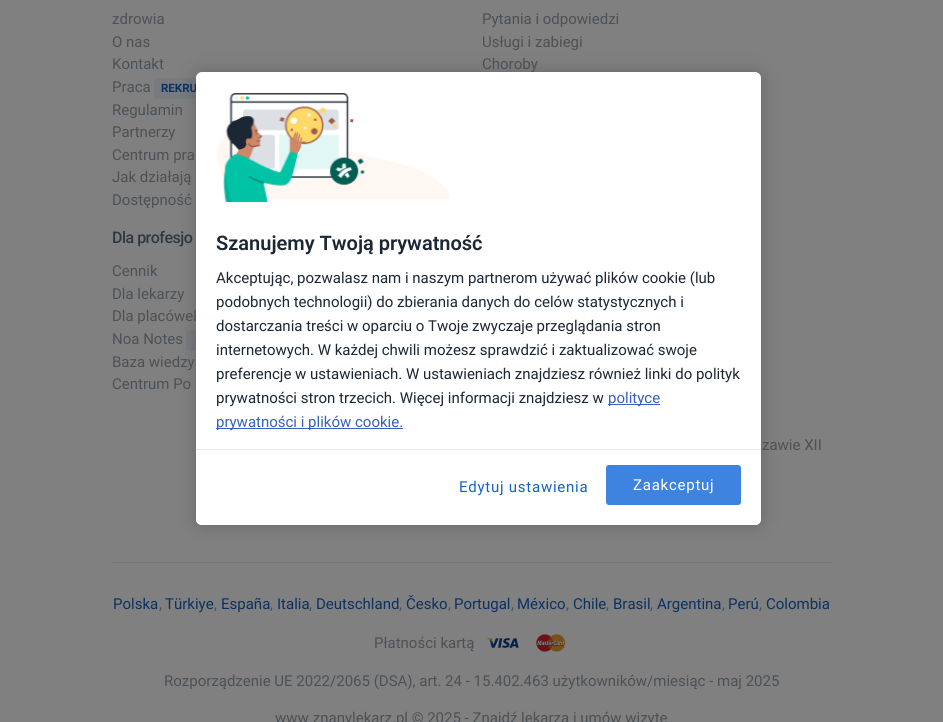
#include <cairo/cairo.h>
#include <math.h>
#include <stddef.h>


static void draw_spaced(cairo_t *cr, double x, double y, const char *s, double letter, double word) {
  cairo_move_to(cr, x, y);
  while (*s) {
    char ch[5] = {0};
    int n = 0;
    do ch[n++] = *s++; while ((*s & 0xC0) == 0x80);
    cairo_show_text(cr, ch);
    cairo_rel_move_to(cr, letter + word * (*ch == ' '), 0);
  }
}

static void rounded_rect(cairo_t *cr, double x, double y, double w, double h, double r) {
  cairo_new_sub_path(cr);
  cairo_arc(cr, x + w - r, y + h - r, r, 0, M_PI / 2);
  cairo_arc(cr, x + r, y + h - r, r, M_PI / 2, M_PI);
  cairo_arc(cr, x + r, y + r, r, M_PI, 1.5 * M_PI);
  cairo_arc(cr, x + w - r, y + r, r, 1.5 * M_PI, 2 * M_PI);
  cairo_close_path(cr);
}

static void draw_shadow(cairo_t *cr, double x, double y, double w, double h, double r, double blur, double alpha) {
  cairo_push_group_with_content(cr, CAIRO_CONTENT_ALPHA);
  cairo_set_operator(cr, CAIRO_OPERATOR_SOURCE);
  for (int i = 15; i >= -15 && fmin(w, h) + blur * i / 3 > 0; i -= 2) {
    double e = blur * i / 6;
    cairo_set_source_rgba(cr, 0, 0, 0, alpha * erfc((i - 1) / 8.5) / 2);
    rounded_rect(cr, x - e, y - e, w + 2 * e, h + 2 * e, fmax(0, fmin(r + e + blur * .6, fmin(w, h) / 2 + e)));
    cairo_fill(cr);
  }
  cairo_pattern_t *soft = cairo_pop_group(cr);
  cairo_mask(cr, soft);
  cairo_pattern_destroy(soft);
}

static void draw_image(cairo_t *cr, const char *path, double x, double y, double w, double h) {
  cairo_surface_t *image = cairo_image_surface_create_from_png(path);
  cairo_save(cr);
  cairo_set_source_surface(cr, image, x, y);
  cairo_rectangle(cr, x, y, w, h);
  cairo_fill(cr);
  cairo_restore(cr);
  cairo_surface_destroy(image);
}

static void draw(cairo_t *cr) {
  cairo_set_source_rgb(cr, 128 / 255.0, 128 / 255.0, 128 / 255.0);
  cairo_paint(cr);
  cairo_set_source_rgb(cr, 119 / 255.0, 122 / 255.0, 127 / 255.0);
  rounded_rect(cr, 154, 78, 97, 21, 3);
  cairo_fill(cr);
  rounded_rect(cr, 186, 330, 62, 21, 3);
  cairo_fill(cr);
  cairo_set_source_rgb(cr, 119 / 255.0, 120 / 255.0, 121 / 255.0);
  cairo_rectangle(cr, 112, 562, 720, 1);
  cairo_fill(cr);
  draw_image(cr, "images/1.png", 487, 638, 32, 10);
  draw_image(cr, "images/2.png", 536, 634, 30, 18);
  cairo_set_source_rgb(cr, 0, 0, 0);
  draw_shadow(cr, 196, 72, 565, 453, 6, 9, 0.2);
  cairo_select_font_face(cr, "Roboto", CAIRO_FONT_SLANT_NORMAL, CAIRO_FONT_WEIGHT_NORMAL);
  cairo_set_font_size(cr, 15);
  cairo_set_source_rgb(cr, 76 / 255.0, 81 / 255.0, 86 / 255.0);
  cairo_move_to(cr, 112, 24);
  cairo_show_text(cr, "zdrowia");
  cairo_move_to(cr, 112, 47);
  cairo_show_text(cr, "O nas");
  cairo_move_to(cr, 112, 69);
  cairo_show_text(cr, "Kontakt");
  cairo_move_to(cr, 112, 92);
  cairo_show_text(cr, "Praca");
  cairo_select_font_face(cr, "Roboto", CAIRO_FONT_SLANT_NORMAL, CAIRO_FONT_WEIGHT_BOLD);
  cairo_set_font_size(cr, 11.5);
  cairo_set_source_rgb(cr, 11 / 255.0, 49 / 255.0, 99 / 255.0);
  cairo_move_to(cr, 161, 92);
  cairo_show_text(cr, "REKRU");
  cairo_select_font_face(cr, "Roboto", CAIRO_FONT_SLANT_NORMAL, CAIRO_FONT_WEIGHT_NORMAL);
  cairo_set_font_size(cr, 15);
  cairo_set_source_rgb(cr, 76 / 255.0, 81 / 255.0, 86 / 255.0);
  cairo_move_to(cr, 112, 115);
  cairo_show_text(cr, "Regulamin");
  cairo_move_to(cr, 112, 137);
  cairo_show_text(cr, "Partnerzy");
  cairo_move_to(cr, 112, 160);
  cairo_show_text(cr, "Centrum pra");
  cairo_move_to(cr, 112, 182);
  cairo_show_text(cr, "Jak działają");
  cairo_move_to(cr, 112, 205);
  cairo_show_text(cr, "Dostępność");
  cairo_move_to(cr, 482, 24);
  cairo_show_text(cr, "Pytania i odpowiedzi");
  cairo_move_to(cr, 482, 47);
  cairo_show_text(cr, "Usługi i zabiegi");
  cairo_move_to(cr, 482, 69);
  cairo_show_text(cr, "Choroby");
  cairo_select_font_face(cr, "Roboto Medium", CAIRO_FONT_SLANT_NORMAL, CAIRO_FONT_WEIGHT_NORMAL);
  cairo_set_font_size(cr, 16);
  cairo_set_source_rgb(cr, 48 / 255.0, 55 / 255.0, 64 / 255.0);
  draw_spaced(cr, 112, 243, "Dla profesjo", -0.5, 0);
  cairo_select_font_face(cr, "Roboto", CAIRO_FONT_SLANT_NORMAL, CAIRO_FONT_WEIGHT_NORMAL);
  cairo_set_font_size(cr, 15);
  cairo_set_source_rgb(cr, 76 / 255.0, 81 / 255.0, 86 / 255.0);
  cairo_move_to(cr, 112, 276);
  cairo_show_text(cr, "Cennik");
  cairo_move_to(cr, 112, 299);
  cairo_show_text(cr, "Dla lekarzy");
  cairo_move_to(cr, 112, 321);
  cairo_show_text(cr, "Dla placówek");
  cairo_move_to(cr, 112, 344);
  cairo_show_text(cr, "Noa Notes");
  cairo_move_to(cr, 112, 367);
  cairo_show_text(cr, "Baza wiedzy");
  cairo_move_to(cr, 112, 389);
  cairo_show_text(cr, "Centrum Po");
  cairo_move_to(cr, 762, 450);
  cairo_show_text(cr, "zawie XII");
  cairo_set_source_rgb(cr, 11 / 255.0, 49 / 255.0, 99 / 255.0);
  cairo_move_to(cr, 113, 609);
  cairo_show_text(cr, "Polska");
  cairo_set_source_rgb(cr, 76 / 255.0, 81 / 255.0, 86 / 255.0);
  cairo_move_to(cr, 159, 609);
  cairo_show_text(cr, ",");
  cairo_set_source_rgb(cr, 11 / 255.0, 49 / 255.0, 99 / 255.0);
  cairo_move_to(cr, 165, 609);
  cairo_show_text(cr, "Türkiye");
  cairo_set_source_rgb(cr, 76 / 255.0, 81 / 255.0, 86 / 255.0);
  cairo_move_to(cr, 214, 609);
  cairo_show_text(cr, ",");
  cairo_set_source_rgb(cr, 11 / 255.0, 49 / 255.0, 99 / 255.0);
  cairo_move_to(cr, 221, 609);
  cairo_show_text(cr, "España");
  cairo_set_source_rgb(cr, 76 / 255.0, 81 / 255.0, 86 / 255.0);
  cairo_move_to(cr, 270, 609);
  cairo_show_text(cr, ",");
  cairo_set_source_rgb(cr, 11 / 255.0, 49 / 255.0, 99 / 255.0);
  cairo_move_to(cr, 277, 609);
  cairo_show_text(cr, "Italia");
  cairo_set_source_rgb(cr, 76 / 255.0, 81 / 255.0, 86 / 255.0);
  cairo_move_to(cr, 309, 609);
  cairo_show_text(cr, ",");
  cairo_set_source_rgb(cr, 11 / 255.0, 49 / 255.0, 99 / 255.0);
  cairo_move_to(cr, 316, 609);
  cairo_show_text(cr, "Deutschland");
  cairo_set_source_rgb(cr, 76 / 255.0, 81 / 255.0, 86 / 255.0);
  cairo_move_to(cr, 399, 609);
  cairo_show_text(cr, ",");
  cairo_set_source_rgb(cr, 11 / 255.0, 49 / 255.0, 99 / 255.0);
  cairo_move_to(cr, 406, 609);
  cairo_show_text(cr, "Česko");
  cairo_set_source_rgb(cr, 76 / 255.0, 81 / 255.0, 86 / 255.0);
  cairo_move_to(cr, 448, 609);
  cairo_show_text(cr, ",");
  cairo_set_source_rgb(cr, 11 / 255.0, 49 / 255.0, 99 / 255.0);
  cairo_move_to(cr, 454, 609);
  cairo_show_text(cr, "Portugal");
  cairo_set_source_rgb(cr, 76 / 255.0, 81 / 255.0, 86 / 255.0);
  cairo_move_to(cr, 511, 609);
  cairo_show_text(cr, ",");
  cairo_set_source_rgb(cr, 11 / 255.0, 49 / 255.0, 99 / 255.0);
  cairo_move_to(cr, 517, 609);
  cairo_show_text(cr, "México");
  cairo_set_source_rgb(cr, 76 / 255.0, 81 / 255.0, 86 / 255.0);
  cairo_move_to(cr, 566, 609);
  cairo_show_text(cr, ",");
  cairo_set_source_rgb(cr, 11 / 255.0, 49 / 255.0, 99 / 255.0);
  cairo_move_to(cr, 573, 609);
  cairo_show_text(cr, "Chile");
  cairo_set_source_rgb(cr, 76 / 255.0, 81 / 255.0, 86 / 255.0);
  cairo_move_to(cr, 606, 609);
  cairo_show_text(cr, ",");
  cairo_set_source_rgb(cr, 11 / 255.0, 49 / 255.0, 99 / 255.0);
  cairo_move_to(cr, 613, 609);
  cairo_show_text(cr, "Brasil");
  cairo_set_source_rgb(cr, 76 / 255.0, 81 / 255.0, 86 / 255.0);
  cairo_move_to(cr, 650, 609);
  cairo_show_text(cr, ",");
  cairo_set_source_rgb(cr, 11 / 255.0, 49 / 255.0, 99 / 255.0);
  cairo_move_to(cr, 657, 609);
  cairo_show_text(cr, "Argentina");
  cairo_set_source_rgb(cr, 76 / 255.0, 81 / 255.0, 86 / 255.0);
  cairo_move_to(cr, 722, 609);
  cairo_show_text(cr, ",");
  cairo_set_source_rgb(cr, 11 / 255.0, 49 / 255.0, 99 / 255.0);
  cairo_move_to(cr, 728, 609);
  cairo_show_text(cr, "Perú");
  cairo_set_source_rgb(cr, 76 / 255.0, 81 / 255.0, 86 / 255.0);
  cairo_move_to(cr, 759, 609);
  cairo_show_text(cr, ",");
  cairo_set_source_rgb(cr, 11 / 255.0, 49 / 255.0, 99 / 255.0);
  cairo_move_to(cr, 766, 609);
  cairo_show_text(cr, "Colombia");
  cairo_set_source_rgb(cr, 76 / 255.0, 81 / 255.0, 86 / 255.0);
  cairo_move_to(cr, 374, 648);
  cairo_show_text(cr, "Płatności kartą");
  cairo_move_to(cr, 164, 686);
  cairo_show_text(cr, "Rozporządzenie UE 2022/2065 (DSA), art. 24 - 15.402.463 użytkowników/miesiąc - maj 2025");
  cairo_move_to(cr, 275, 723);
  cairo_show_text(cr, "www.znanylekarz.pl © 2025 - Znajdź lekarza i umów wizytę");
  cairo_set_source_rgb(cr, 1, 1, 1);
  rounded_rect(cr, 196, 72, 565, 453, 6);
  cairo_fill(cr);
  draw_image(cr, "images/3.png", 217, 93, 233, 109);
  cairo_select_font_face(cr, "Roboto SemiBold", CAIRO_FONT_SLANT_NORMAL, CAIRO_FONT_WEIGHT_NORMAL);
  cairo_set_font_size(cr, 20);
  cairo_set_source_rgb(cr, 27 / 255.0, 39 / 255.0, 52 / 255.0);
  cairo_move_to(cr, 216, 250);
  cairo_show_text(cr, "Szanujemy Twoją prywatność");
  cairo_select_font_face(cr, "Roboto", CAIRO_FONT_SLANT_NORMAL, CAIRO_FONT_WEIGHT_NORMAL);
  cairo_set_font_size(cr, 15);
  cairo_move_to(cr, 216, 283);
  cairo_show_text(cr, "Akceptując, pozwalasz nam i naszym partnerom używać plików cookie (lub");
  cairo_move_to(cr, 216, 307);
  cairo_show_text(cr, "podobnych technologii) do zbierania danych do celów statystycznych i");
  cairo_move_to(cr, 216, 331);
  cairo_show_text(cr, "dostarczania treści w oparciu o Twoje zwyczaje przeglądania stron");
  cairo_move_to(cr, 216, 355);
  cairo_show_text(cr, "internetowych. W każdej chwili możesz sprawdzić i zaktualizować swoje");
  cairo_move_to(cr, 216, 379);
  cairo_show_text(cr, "preferencje w ustawieniach. W ustawieniach znajdziesz również linki do polityk");
  cairo_move_to(cr, 216, 403);
  cairo_show_text(cr, "prywatności stron trzecich. Więcej informacji znajdziesz w");
  cairo_set_source_rgb(cr, 56 / 255.0, 96 / 255.0, 190 / 255.0);
  cairo_rectangle(cr, 608, 404, 52, 1);
  cairo_fill(cr);
  cairo_move_to(cr, 608, 403);
  cairo_show_text(cr, "polityce");
  cairo_rectangle(cr, 216, 428, 187, 1);
  cairo_fill(cr);
  cairo_move_to(cr, 216, 427);
  cairo_show_text(cr, "prywatności i plików cookie.");
  cairo_set_source_rgb(cr, 1, 1, 1);
  cairo_new_path(cr);
  cairo_move_to(cr, 196, 449);
  cairo_line_to(cr, 761, 449);
  cairo_line_to(cr, 761, 519);
  cairo_curve_to(cr, 761, 522.5, 758.5, 525, 755, 525);
  cairo_line_to(cr, 202, 525);
  cairo_curve_to(cr, 198.5, 525, 196, 522.5, 196, 519);
  cairo_close_path(cr);
  cairo_fill(cr);
  cairo_set_source_rgb(cr, 233 / 255.0, 233 / 255.0, 233 / 255.0);
  cairo_rectangle(cr, 196, 449, 565, 1);
  cairo_fill(cr);
  cairo_set_source_rgb(cr, 22 / 255.0, 98 / 255.0, 198 / 255.0);
  draw_spaced(cr, 459, 492, "Edytuj ustawienia", 0.75, 0);
  cairo_set_source_rgb(cr, 61 / 255.0, 131 / 255.0, 223 / 255.0);
  rounded_rect(cr, 606.5, 465.5, 134, 39, 2.5);
  cairo_fill_preserve(cr);
  cairo_set_line_width(cr, 1);
  cairo_stroke(cr);
  cairo_set_source_rgb(cr, 1, 1, 1);
  draw_spaced(cr, 633, 490, "Zaakceptuj", 0.75, 0);
}

int main(void) {
  cairo_surface_t *surface = cairo_image_surface_create(CAIRO_FORMAT_RGB24, 943, 722);
  cairo_t *cr = cairo_create(surface);
  cairo_font_options_t *options = cairo_font_options_create();
  cairo_font_options_set_hint_metrics(options, CAIRO_HINT_METRICS_OFF);
  cairo_font_options_set_hint_style(options, CAIRO_HINT_STYLE_NONE);
  cairo_set_font_options(cr, options);
  cairo_set_miter_limit(cr, 4);
  draw(cr);
  cairo_surface_write_to_png(surface, "out.png");
  cairo_font_options_destroy(options);
  cairo_destroy(cr);
  cairo_surface_destroy(surface);
  return 0;
}
